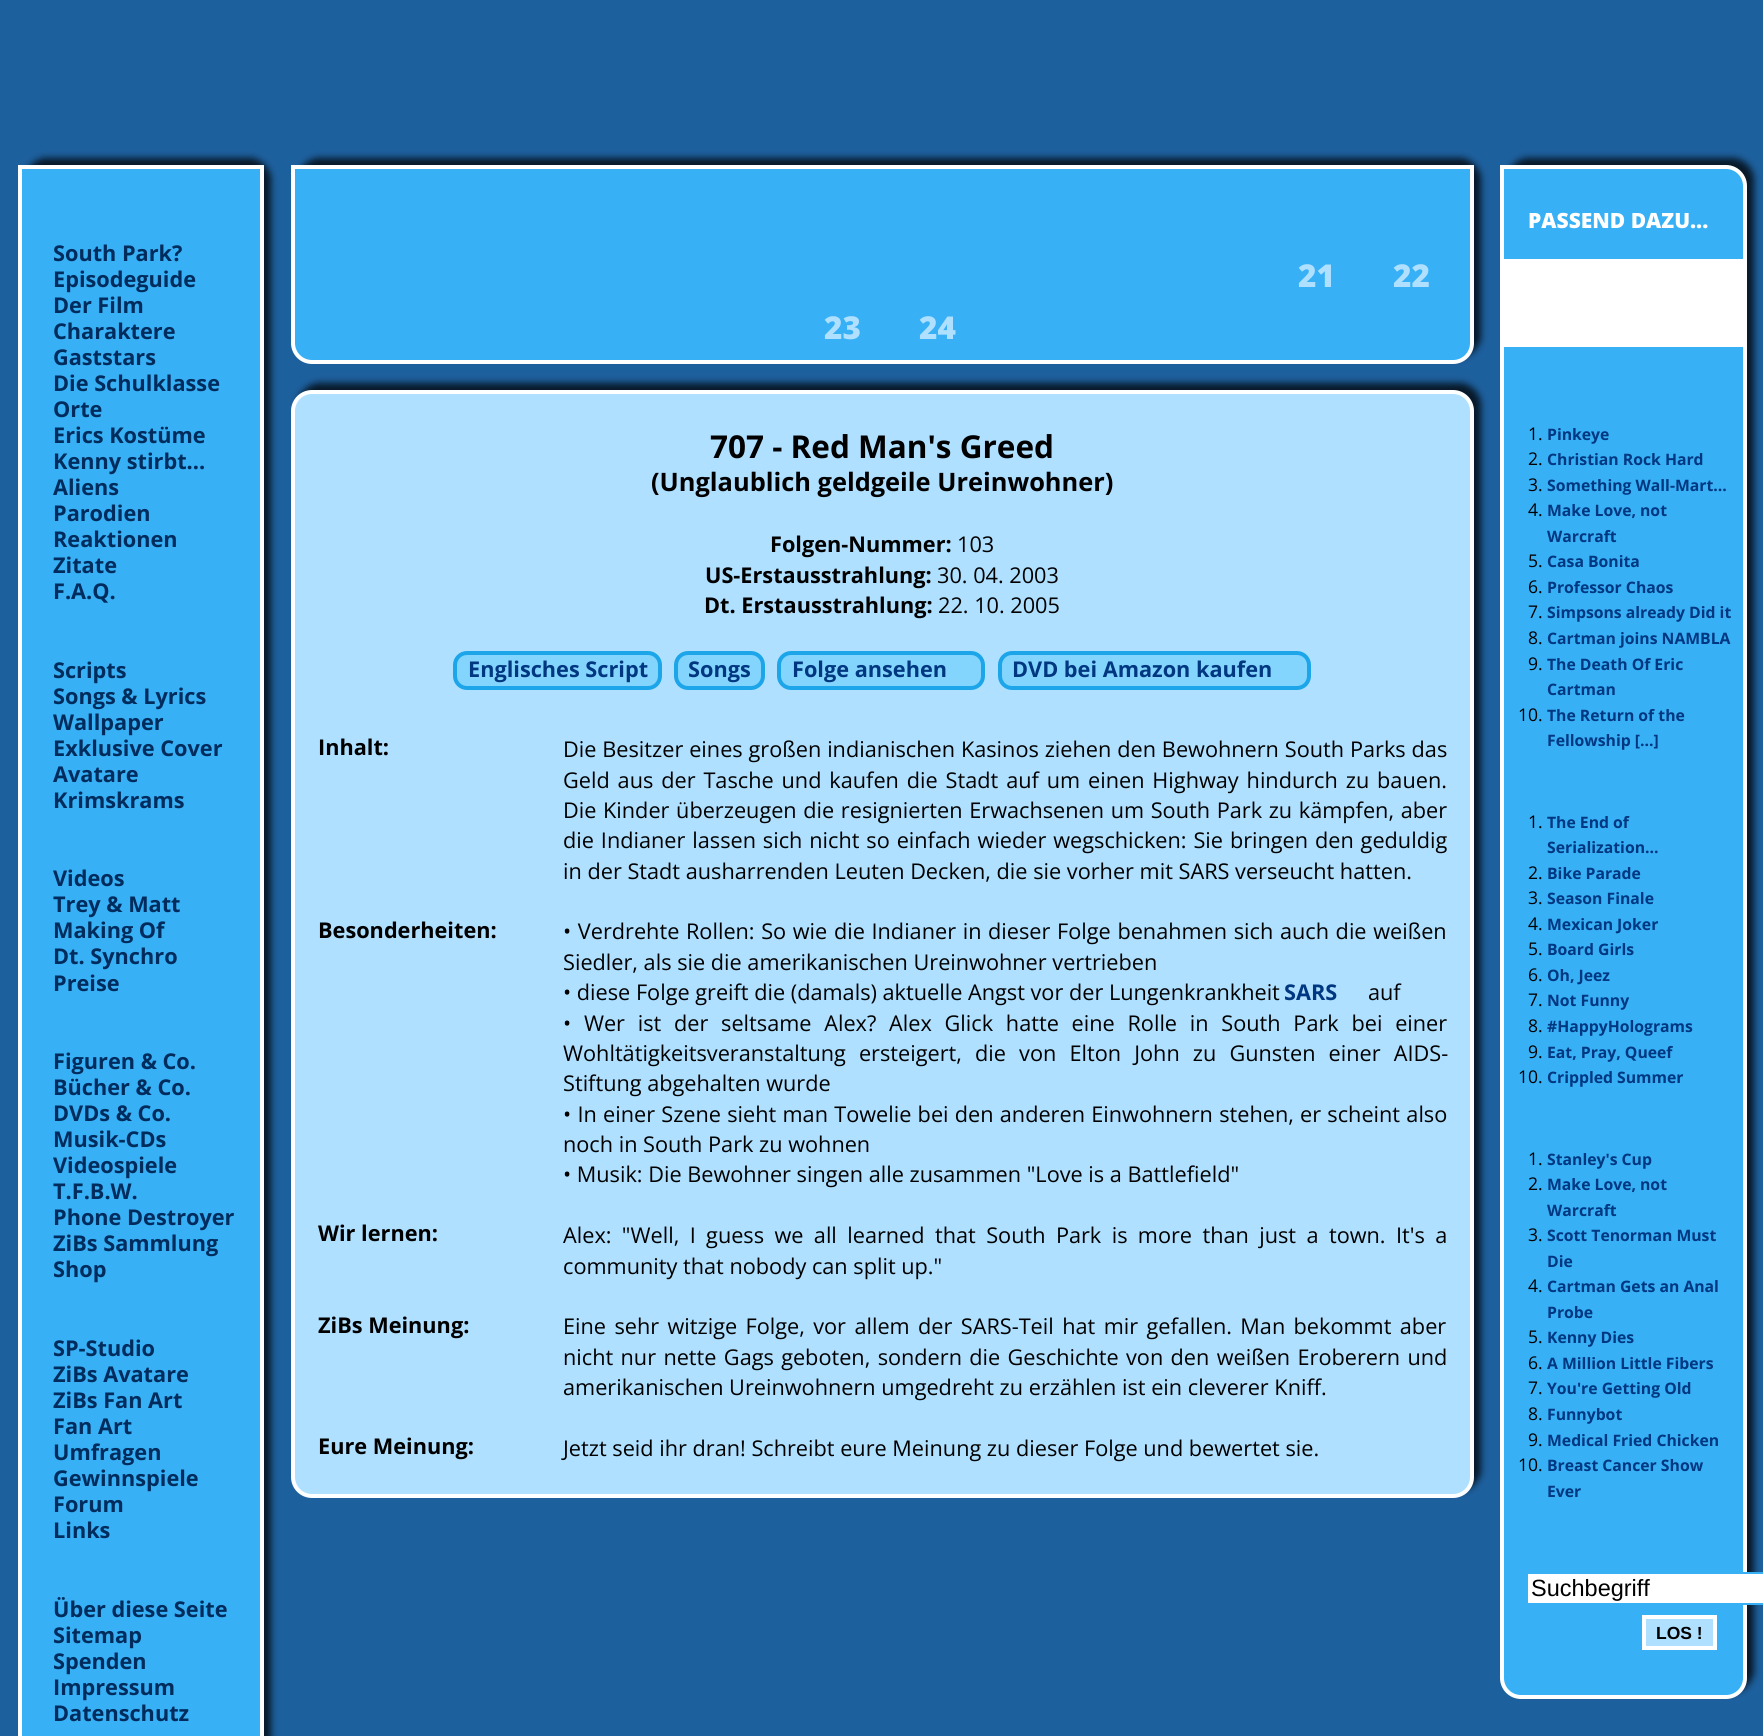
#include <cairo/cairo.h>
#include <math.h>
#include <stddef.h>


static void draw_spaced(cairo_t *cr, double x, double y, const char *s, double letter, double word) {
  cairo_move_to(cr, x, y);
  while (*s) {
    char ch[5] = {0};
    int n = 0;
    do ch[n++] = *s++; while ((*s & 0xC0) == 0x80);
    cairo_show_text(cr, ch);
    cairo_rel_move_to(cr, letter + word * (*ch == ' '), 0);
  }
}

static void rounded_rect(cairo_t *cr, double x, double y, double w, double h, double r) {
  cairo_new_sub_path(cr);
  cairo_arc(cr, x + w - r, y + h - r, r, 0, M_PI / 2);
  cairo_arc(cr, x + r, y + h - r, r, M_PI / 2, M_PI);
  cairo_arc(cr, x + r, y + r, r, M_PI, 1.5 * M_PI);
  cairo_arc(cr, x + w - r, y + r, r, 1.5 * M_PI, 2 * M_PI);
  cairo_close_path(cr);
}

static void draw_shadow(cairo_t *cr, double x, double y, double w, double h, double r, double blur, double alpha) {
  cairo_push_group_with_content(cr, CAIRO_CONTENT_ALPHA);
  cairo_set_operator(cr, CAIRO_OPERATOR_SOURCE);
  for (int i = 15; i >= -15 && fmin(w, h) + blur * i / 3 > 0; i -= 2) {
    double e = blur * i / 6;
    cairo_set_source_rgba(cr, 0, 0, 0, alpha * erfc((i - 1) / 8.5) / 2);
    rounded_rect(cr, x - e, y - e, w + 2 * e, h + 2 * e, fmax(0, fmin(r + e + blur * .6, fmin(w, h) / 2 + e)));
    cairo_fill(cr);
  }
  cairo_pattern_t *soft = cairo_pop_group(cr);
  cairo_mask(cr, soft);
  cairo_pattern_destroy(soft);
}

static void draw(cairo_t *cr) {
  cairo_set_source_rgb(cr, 29 / 255.0, 96 / 255.0, 158 / 255.0);
  cairo_paint(cr);
  cairo_set_source_rgb(cr, 0, 0, 0);
  draw_shadow(cr, 25, 158, 246, 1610, 21, 3.5, 0.75);
  cairo_set_source_rgb(cr, 55 / 255.0, 176 / 255.0, 245 / 255.0);
  cairo_rectangle(cr, 20, 167, 242, 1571);
  cairo_fill_preserve(cr);
  cairo_set_source_rgb(cr, 1, 1, 1);
  cairo_set_line_width(cr, 4);
  cairo_stroke(cr);
  cairo_set_source_rgb(cr, 0, 0, 0);
  draw_shadow(cr, 298, 158, 1183, 199, 21, 3.5, 0.75);
  cairo_set_source_rgb(cr, 55 / 255.0, 176 / 255.0, 245 / 255.0);
  cairo_new_path(cr);
  cairo_move_to(cr, 293, 167);
  cairo_line_to(cr, 1472, 167);
  cairo_line_to(cr, 1472, 343);
  cairo_curve_to(cr, 1472, 353.5, 1463.5, 362, 1453, 362);
  cairo_line_to(cr, 312, 362);
  cairo_curve_to(cr, 301.5, 362, 293, 353.5, 293, 343);
  cairo_close_path(cr);
  cairo_fill_preserve(cr);
  cairo_set_source_rgb(cr, 1, 1, 1);
  cairo_stroke(cr);
  cairo_set_source_rgb(cr, 0, 0, 0);
  draw_shadow(cr, 1507, 158, 247, 1534, 21, 3.5, 0.75);
  cairo_set_source_rgb(cr, 55 / 255.0, 176 / 255.0, 245 / 255.0);
  cairo_new_path(cr);
  cairo_move_to(cr, 1502, 167);
  cairo_line_to(cr, 1726, 167);
  cairo_curve_to(cr, 1736.5, 167, 1745, 175.5, 1745, 186);
  cairo_line_to(cr, 1745, 1678);
  cairo_curve_to(cr, 1745, 1688.5, 1736.5, 1697, 1726, 1697);
  cairo_line_to(cr, 1521, 1697);
  cairo_curve_to(cr, 1510.5, 1697, 1502, 1688.5, 1502, 1678);
  cairo_close_path(cr);
  cairo_fill_preserve(cr);
  cairo_set_source_rgb(cr, 1, 1, 1);
  cairo_stroke(cr);
  cairo_rectangle(cr, 1504, 259, 239, 88);
  cairo_fill(cr);
  cairo_rectangle(cr, 1527, 1573, 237, 31);
  cairo_fill_preserve(cr);
  cairo_set_source_rgb(cr, 55 / 255.0, 176 / 255.0, 245 / 255.0);
  cairo_set_line_width(cr, 2);
  cairo_stroke(cr);
  cairo_set_source_rgb(cr, 175 / 255.0, 224 / 255.0, 1);
  cairo_rectangle(cr, 1644, 1617, 71, 31);
  cairo_fill_preserve(cr);
  cairo_set_source_rgb(cr, 1, 1, 1);
  cairo_set_line_width(cr, 4);
  cairo_stroke(cr);
  cairo_set_source_rgb(cr, 0, 0, 0);
  draw_shadow(cr, 298, 383, 1183, 1108, 21, 3.5, 0.75);
  cairo_set_source_rgb(cr, 175 / 255.0, 224 / 255.0, 1);
  rounded_rect(cr, 293, 392, 1179, 1104, 19);
  cairo_fill_preserve(cr);
  cairo_set_source_rgb(cr, 1, 1, 1);
  cairo_stroke(cr);
  cairo_set_source_rgb(cr, 131 / 255.0, 213 / 255.0, 253 / 255.0);
  rounded_rect(cr, 455, 653, 205, 35, 12);
  cairo_fill_preserve(cr);
  cairo_set_source_rgb(cr, 28 / 255.0, 165 / 255.0, 233 / 255.0);
  cairo_stroke(cr);
  cairo_set_source_rgb(cr, 131 / 255.0, 213 / 255.0, 253 / 255.0);
  rounded_rect(cr, 676, 653, 87, 35, 12);
  cairo_fill_preserve(cr);
  cairo_set_source_rgb(cr, 28 / 255.0, 165 / 255.0, 233 / 255.0);
  cairo_stroke(cr);
  cairo_set_source_rgb(cr, 131 / 255.0, 213 / 255.0, 253 / 255.0);
  rounded_rect(cr, 779, 653, 204, 35, 12);
  cairo_fill_preserve(cr);
  cairo_set_source_rgb(cr, 28 / 255.0, 165 / 255.0, 233 / 255.0);
  cairo_stroke(cr);
  cairo_set_source_rgb(cr, 131 / 255.0, 213 / 255.0, 253 / 255.0);
  rounded_rect(cr, 1000, 653, 309, 35, 12);
  cairo_fill_preserve(cr);
  cairo_set_source_rgb(cr, 28 / 255.0, 165 / 255.0, 233 / 255.0);
  cairo_stroke(cr);
  cairo_select_font_face(cr, "Open Sans", CAIRO_FONT_SLANT_NORMAL, CAIRO_FONT_WEIGHT_BOLD);
  cairo_set_font_size(cr, 21.7);
  cairo_set_source_rgb(cr, 0, 44 / 255.0, 93 / 255.0);
  cairo_move_to(cr, 53, 261);
  cairo_show_text(cr, "South Park?");
  cairo_move_to(cr, 53, 287);
  cairo_show_text(cr, "Episodeguide");
  cairo_move_to(cr, 53, 313);
  cairo_show_text(cr, "Der Film");
  cairo_move_to(cr, 53, 339);
  cairo_show_text(cr, "Charaktere");
  cairo_move_to(cr, 53, 365);
  cairo_show_text(cr, "Gaststars");
  cairo_move_to(cr, 53, 391);
  cairo_show_text(cr, "Die Schulklasse");
  cairo_move_to(cr, 53, 417);
  cairo_show_text(cr, "Orte");
  cairo_move_to(cr, 53, 443);
  cairo_show_text(cr, "Erics Kostüme");
  cairo_move_to(cr, 53, 469);
  cairo_show_text(cr, "Kenny stirbt...");
  cairo_move_to(cr, 53, 495);
  cairo_show_text(cr, "Aliens");
  cairo_move_to(cr, 53, 521);
  cairo_show_text(cr, "Parodien");
  cairo_move_to(cr, 53, 547);
  cairo_show_text(cr, "Reaktionen");
  cairo_move_to(cr, 53, 573);
  cairo_show_text(cr, "Zitate");
  cairo_move_to(cr, 53, 599);
  cairo_show_text(cr, "F.A.Q.");
  cairo_move_to(cr, 53, 678);
  cairo_show_text(cr, "Scripts");
  cairo_move_to(cr, 53, 704);
  cairo_show_text(cr, "Songs & Lyrics");
  cairo_move_to(cr, 53, 730);
  cairo_show_text(cr, "Wallpaper");
  cairo_move_to(cr, 53, 756);
  cairo_show_text(cr, "Exklusive Cover");
  cairo_move_to(cr, 53, 782);
  cairo_show_text(cr, "Avatare");
  cairo_move_to(cr, 53, 808);
  cairo_show_text(cr, "Krimskrams");
  cairo_move_to(cr, 53, 886);
  cairo_show_text(cr, "Videos");
  cairo_move_to(cr, 53, 912);
  cairo_show_text(cr, "Trey & Matt");
  cairo_move_to(cr, 53, 938);
  cairo_show_text(cr, "Making Of");
  cairo_move_to(cr, 53, 964);
  cairo_show_text(cr, "Dt. Synchro");
  cairo_move_to(cr, 53, 991);
  cairo_show_text(cr, "Preise");
  cairo_move_to(cr, 53, 1069);
  cairo_show_text(cr, "Figuren & Co.");
  cairo_move_to(cr, 53, 1095);
  cairo_show_text(cr, "Bücher & Co.");
  cairo_move_to(cr, 53, 1121);
  cairo_show_text(cr, "DVDs & Co.");
  cairo_move_to(cr, 53, 1147);
  cairo_show_text(cr, "Musik-CDs");
  cairo_move_to(cr, 53, 1173);
  cairo_show_text(cr, "Videospiele");
  cairo_move_to(cr, 53, 1199);
  cairo_show_text(cr, "T.F.B.W.");
  cairo_move_to(cr, 53, 1225);
  cairo_show_text(cr, "Phone Destroyer");
  cairo_move_to(cr, 53, 1251);
  cairo_show_text(cr, "ZiBs Sammlung");
  cairo_move_to(cr, 53, 1277);
  cairo_show_text(cr, "Shop");
  cairo_move_to(cr, 53, 1356);
  cairo_show_text(cr, "SP-Studio");
  cairo_move_to(cr, 53, 1382);
  cairo_show_text(cr, "ZiBs Avatare");
  cairo_move_to(cr, 53, 1408);
  cairo_show_text(cr, "ZiBs Fan Art");
  cairo_move_to(cr, 53, 1434);
  cairo_show_text(cr, "Fan Art");
  cairo_move_to(cr, 53, 1460);
  cairo_show_text(cr, "Umfragen");
  cairo_move_to(cr, 53, 1486);
  cairo_show_text(cr, "Gewinnspiele");
  cairo_move_to(cr, 53, 1512);
  cairo_show_text(cr, "Forum");
  cairo_move_to(cr, 53, 1538);
  cairo_show_text(cr, "Links");
  cairo_move_to(cr, 53, 1617);
  cairo_show_text(cr, "Über diese Seite");
  cairo_move_to(cr, 53, 1643);
  cairo_show_text(cr, "Sitemap");
  cairo_move_to(cr, 53, 1669);
  cairo_show_text(cr, "Spenden");
  cairo_move_to(cr, 53, 1695);
  cairo_show_text(cr, "Impressum");
  cairo_move_to(cr, 53, 1721);
  cairo_show_text(cr, "Datenschutz");
  cairo_select_font_face(cr, "Open Sans ExtraBold", CAIRO_FONT_SLANT_NORMAL, CAIRO_FONT_WEIGHT_NORMAL);
  cairo_set_font_size(cr, 31.5);
  cairo_set_source_rgb(cr, 175 / 255.0, 224 / 255.0, 1);
  cairo_move_to(cr, 1298, 287);
  cairo_show_text(cr, "21");
  cairo_move_to(cr, 1393, 287);
  cairo_show_text(cr, "22");
  cairo_move_to(cr, 824, 339);
  cairo_show_text(cr, "23");
  cairo_move_to(cr, 919, 339);
  cairo_show_text(cr, "24");
  cairo_set_font_size(cr, 21);
  cairo_set_source_rgb(cr, 1, 1, 1);
  cairo_move_to(cr, 1528, 228);
  cairo_show_text(cr, "PASSEND DAZU...");
  cairo_select_font_face(cr, "Open Sans", CAIRO_FONT_SLANT_NORMAL, CAIRO_FONT_WEIGHT_NORMAL);
  cairo_set_font_size(cr, 17.5);
  cairo_set_source_rgb(cr, 0, 0, 0);
  cairo_move_to(cr, 1528, 440);
  cairo_show_text(cr, "1.");
  cairo_select_font_face(cr, "Open Sans", CAIRO_FONT_SLANT_NORMAL, CAIRO_FONT_WEIGHT_BOLD);
  cairo_set_font_size(cr, 15.75);
  cairo_set_source_rgb(cr, 0, 55 / 255.0, 129 / 255.0);
  cairo_move_to(cr, 1547, 440);
  cairo_show_text(cr, "Pinkeye");
  cairo_select_font_face(cr, "Open Sans", CAIRO_FONT_SLANT_NORMAL, CAIRO_FONT_WEIGHT_NORMAL);
  cairo_set_font_size(cr, 17.5);
  cairo_set_source_rgb(cr, 0, 0, 0);
  cairo_move_to(cr, 1528, 465);
  cairo_show_text(cr, "2.");
  cairo_select_font_face(cr, "Open Sans", CAIRO_FONT_SLANT_NORMAL, CAIRO_FONT_WEIGHT_BOLD);
  cairo_set_font_size(cr, 15.75);
  cairo_set_source_rgb(cr, 0, 55 / 255.0, 129 / 255.0);
  cairo_move_to(cr, 1547, 465);
  cairo_show_text(cr, "Christian Rock Hard");
  cairo_select_font_face(cr, "Open Sans", CAIRO_FONT_SLANT_NORMAL, CAIRO_FONT_WEIGHT_NORMAL);
  cairo_set_font_size(cr, 17.5);
  cairo_set_source_rgb(cr, 0, 0, 0);
  cairo_move_to(cr, 1528, 491);
  cairo_show_text(cr, "3.");
  cairo_select_font_face(cr, "Open Sans", CAIRO_FONT_SLANT_NORMAL, CAIRO_FONT_WEIGHT_BOLD);
  cairo_set_font_size(cr, 15.75);
  cairo_set_source_rgb(cr, 0, 55 / 255.0, 129 / 255.0);
  cairo_move_to(cr, 1547, 491);
  cairo_show_text(cr, "Something Wall-Mart...");
  cairo_select_font_face(cr, "Open Sans", CAIRO_FONT_SLANT_NORMAL, CAIRO_FONT_WEIGHT_NORMAL);
  cairo_set_font_size(cr, 17.5);
  cairo_set_source_rgb(cr, 0, 0, 0);
  cairo_move_to(cr, 1528, 516);
  cairo_show_text(cr, "4.");
  cairo_select_font_face(cr, "Open Sans", CAIRO_FONT_SLANT_NORMAL, CAIRO_FONT_WEIGHT_BOLD);
  cairo_set_font_size(cr, 15.75);
  cairo_set_source_rgb(cr, 0, 55 / 255.0, 129 / 255.0);
  cairo_move_to(cr, 1547, 516);
  cairo_show_text(cr, "Make Love, not");
  cairo_move_to(cr, 1547, 542);
  cairo_show_text(cr, "Warcraft");
  cairo_select_font_face(cr, "Open Sans", CAIRO_FONT_SLANT_NORMAL, CAIRO_FONT_WEIGHT_NORMAL);
  cairo_set_font_size(cr, 17.5);
  cairo_set_source_rgb(cr, 0, 0, 0);
  cairo_move_to(cr, 1528, 567);
  cairo_show_text(cr, "5.");
  cairo_select_font_face(cr, "Open Sans", CAIRO_FONT_SLANT_NORMAL, CAIRO_FONT_WEIGHT_BOLD);
  cairo_set_font_size(cr, 15.75);
  cairo_set_source_rgb(cr, 0, 55 / 255.0, 129 / 255.0);
  cairo_move_to(cr, 1547, 567);
  cairo_show_text(cr, "Casa Bonita");
  cairo_select_font_face(cr, "Open Sans", CAIRO_FONT_SLANT_NORMAL, CAIRO_FONT_WEIGHT_NORMAL);
  cairo_set_font_size(cr, 17.5);
  cairo_set_source_rgb(cr, 0, 0, 0);
  cairo_move_to(cr, 1528, 593);
  cairo_show_text(cr, "6.");
  cairo_select_font_face(cr, "Open Sans", CAIRO_FONT_SLANT_NORMAL, CAIRO_FONT_WEIGHT_BOLD);
  cairo_set_font_size(cr, 15.75);
  cairo_set_source_rgb(cr, 0, 55 / 255.0, 129 / 255.0);
  cairo_move_to(cr, 1547, 593);
  cairo_show_text(cr, "Professor Chaos");
  cairo_select_font_face(cr, "Open Sans", CAIRO_FONT_SLANT_NORMAL, CAIRO_FONT_WEIGHT_NORMAL);
  cairo_set_font_size(cr, 17.5);
  cairo_set_source_rgb(cr, 0, 0, 0);
  cairo_move_to(cr, 1528, 618);
  cairo_show_text(cr, "7.");
  cairo_select_font_face(cr, "Open Sans", CAIRO_FONT_SLANT_NORMAL, CAIRO_FONT_WEIGHT_BOLD);
  cairo_set_font_size(cr, 15.75);
  cairo_set_source_rgb(cr, 0, 55 / 255.0, 129 / 255.0);
  cairo_move_to(cr, 1547, 618);
  cairo_show_text(cr, "Simpsons already Did it");
  cairo_select_font_face(cr, "Open Sans", CAIRO_FONT_SLANT_NORMAL, CAIRO_FONT_WEIGHT_NORMAL);
  cairo_set_font_size(cr, 17.5);
  cairo_set_source_rgb(cr, 0, 0, 0);
  cairo_move_to(cr, 1528, 644);
  cairo_show_text(cr, "8.");
  cairo_select_font_face(cr, "Open Sans", CAIRO_FONT_SLANT_NORMAL, CAIRO_FONT_WEIGHT_BOLD);
  cairo_set_font_size(cr, 15.75);
  cairo_set_source_rgb(cr, 0, 55 / 255.0, 129 / 255.0);
  cairo_move_to(cr, 1547, 644);
  cairo_show_text(cr, "Cartman joins NAMBLA");
  cairo_select_font_face(cr, "Open Sans", CAIRO_FONT_SLANT_NORMAL, CAIRO_FONT_WEIGHT_NORMAL);
  cairo_set_font_size(cr, 17.5);
  cairo_set_source_rgb(cr, 0, 0, 0);
  cairo_move_to(cr, 1528, 670);
  cairo_show_text(cr, "9.");
  cairo_select_font_face(cr, "Open Sans", CAIRO_FONT_SLANT_NORMAL, CAIRO_FONT_WEIGHT_BOLD);
  cairo_set_font_size(cr, 15.75);
  cairo_set_source_rgb(cr, 0, 55 / 255.0, 129 / 255.0);
  cairo_move_to(cr, 1547, 670);
  cairo_show_text(cr, "The Death Of Eric");
  cairo_move_to(cr, 1547, 695);
  cairo_show_text(cr, "Cartman");
  cairo_select_font_face(cr, "Open Sans", CAIRO_FONT_SLANT_NORMAL, CAIRO_FONT_WEIGHT_NORMAL);
  cairo_set_font_size(cr, 17.5);
  cairo_set_source_rgb(cr, 0, 0, 0);
  cairo_move_to(cr, 1518, 721);
  cairo_show_text(cr, "10.");
  cairo_select_font_face(cr, "Open Sans", CAIRO_FONT_SLANT_NORMAL, CAIRO_FONT_WEIGHT_BOLD);
  cairo_set_font_size(cr, 15.75);
  cairo_set_source_rgb(cr, 0, 55 / 255.0, 129 / 255.0);
  cairo_move_to(cr, 1547, 721);
  cairo_show_text(cr, "The Return of the");
  cairo_move_to(cr, 1547, 746);
  cairo_show_text(cr, "Fellowship [...]");
  cairo_select_font_face(cr, "Open Sans", CAIRO_FONT_SLANT_NORMAL, CAIRO_FONT_WEIGHT_NORMAL);
  cairo_set_font_size(cr, 17.5);
  cairo_set_source_rgb(cr, 0, 0, 0);
  cairo_move_to(cr, 1528, 828);
  cairo_show_text(cr, "1.");
  cairo_select_font_face(cr, "Open Sans", CAIRO_FONT_SLANT_NORMAL, CAIRO_FONT_WEIGHT_BOLD);
  cairo_set_font_size(cr, 15.75);
  cairo_set_source_rgb(cr, 0, 55 / 255.0, 129 / 255.0);
  cairo_move_to(cr, 1547, 828);
  cairo_show_text(cr, "The End of");
  cairo_move_to(cr, 1547, 853);
  cairo_show_text(cr, "Serialization...");
  cairo_select_font_face(cr, "Open Sans", CAIRO_FONT_SLANT_NORMAL, CAIRO_FONT_WEIGHT_NORMAL);
  cairo_set_font_size(cr, 17.5);
  cairo_set_source_rgb(cr, 0, 0, 0);
  cairo_move_to(cr, 1528, 879);
  cairo_show_text(cr, "2.");
  cairo_select_font_face(cr, "Open Sans", CAIRO_FONT_SLANT_NORMAL, CAIRO_FONT_WEIGHT_BOLD);
  cairo_set_font_size(cr, 15.75);
  cairo_set_source_rgb(cr, 0, 55 / 255.0, 129 / 255.0);
  cairo_move_to(cr, 1547, 879);
  cairo_show_text(cr, "Bike Parade");
  cairo_select_font_face(cr, "Open Sans", CAIRO_FONT_SLANT_NORMAL, CAIRO_FONT_WEIGHT_NORMAL);
  cairo_set_font_size(cr, 17.5);
  cairo_set_source_rgb(cr, 0, 0, 0);
  cairo_move_to(cr, 1528, 904);
  cairo_show_text(cr, "3.");
  cairo_select_font_face(cr, "Open Sans", CAIRO_FONT_SLANT_NORMAL, CAIRO_FONT_WEIGHT_BOLD);
  cairo_set_font_size(cr, 15.75);
  cairo_set_source_rgb(cr, 0, 55 / 255.0, 129 / 255.0);
  cairo_move_to(cr, 1547, 904);
  cairo_show_text(cr, "Season Finale");
  cairo_select_font_face(cr, "Open Sans", CAIRO_FONT_SLANT_NORMAL, CAIRO_FONT_WEIGHT_NORMAL);
  cairo_set_font_size(cr, 17.5);
  cairo_set_source_rgb(cr, 0, 0, 0);
  cairo_move_to(cr, 1528, 930);
  cairo_show_text(cr, "4.");
  cairo_select_font_face(cr, "Open Sans", CAIRO_FONT_SLANT_NORMAL, CAIRO_FONT_WEIGHT_BOLD);
  cairo_set_font_size(cr, 15.75);
  cairo_set_source_rgb(cr, 0, 55 / 255.0, 129 / 255.0);
  cairo_move_to(cr, 1547, 930);
  cairo_show_text(cr, "Mexican Joker");
  cairo_select_font_face(cr, "Open Sans", CAIRO_FONT_SLANT_NORMAL, CAIRO_FONT_WEIGHT_NORMAL);
  cairo_set_font_size(cr, 17.5);
  cairo_set_source_rgb(cr, 0, 0, 0);
  cairo_move_to(cr, 1528, 955);
  cairo_show_text(cr, "5.");
  cairo_select_font_face(cr, "Open Sans", CAIRO_FONT_SLANT_NORMAL, CAIRO_FONT_WEIGHT_BOLD);
  cairo_set_font_size(cr, 15.75);
  cairo_set_source_rgb(cr, 0, 55 / 255.0, 129 / 255.0);
  cairo_move_to(cr, 1547, 955);
  cairo_show_text(cr, "Board Girls");
  cairo_select_font_face(cr, "Open Sans", CAIRO_FONT_SLANT_NORMAL, CAIRO_FONT_WEIGHT_NORMAL);
  cairo_set_font_size(cr, 17.5);
  cairo_set_source_rgb(cr, 0, 0, 0);
  cairo_move_to(cr, 1528, 981);
  cairo_show_text(cr, "6.");
  cairo_select_font_face(cr, "Open Sans", CAIRO_FONT_SLANT_NORMAL, CAIRO_FONT_WEIGHT_BOLD);
  cairo_set_font_size(cr, 15.75);
  cairo_set_source_rgb(cr, 0, 55 / 255.0, 129 / 255.0);
  cairo_move_to(cr, 1547, 981);
  cairo_show_text(cr, "Oh, Jeez");
  cairo_select_font_face(cr, "Open Sans", CAIRO_FONT_SLANT_NORMAL, CAIRO_FONT_WEIGHT_NORMAL);
  cairo_set_font_size(cr, 17.5);
  cairo_set_source_rgb(cr, 0, 0, 0);
  cairo_move_to(cr, 1528, 1006);
  cairo_show_text(cr, "7.");
  cairo_select_font_face(cr, "Open Sans", CAIRO_FONT_SLANT_NORMAL, CAIRO_FONT_WEIGHT_BOLD);
  cairo_set_font_size(cr, 15.75);
  cairo_set_source_rgb(cr, 0, 55 / 255.0, 129 / 255.0);
  cairo_move_to(cr, 1547, 1006);
  cairo_show_text(cr, "Not Funny");
  cairo_select_font_face(cr, "Open Sans", CAIRO_FONT_SLANT_NORMAL, CAIRO_FONT_WEIGHT_NORMAL);
  cairo_set_font_size(cr, 17.5);
  cairo_set_source_rgb(cr, 0, 0, 0);
  cairo_move_to(cr, 1528, 1032);
  cairo_show_text(cr, "8.");
  cairo_select_font_face(cr, "Open Sans", CAIRO_FONT_SLANT_NORMAL, CAIRO_FONT_WEIGHT_BOLD);
  cairo_set_font_size(cr, 15.75);
  cairo_set_source_rgb(cr, 0, 55 / 255.0, 129 / 255.0);
  cairo_move_to(cr, 1547, 1032);
  cairo_show_text(cr, "#HappyHolograms");
  cairo_select_font_face(cr, "Open Sans", CAIRO_FONT_SLANT_NORMAL, CAIRO_FONT_WEIGHT_NORMAL);
  cairo_set_font_size(cr, 17.5);
  cairo_set_source_rgb(cr, 0, 0, 0);
  cairo_move_to(cr, 1528, 1058);
  cairo_show_text(cr, "9.");
  cairo_select_font_face(cr, "Open Sans", CAIRO_FONT_SLANT_NORMAL, CAIRO_FONT_WEIGHT_BOLD);
  cairo_set_font_size(cr, 15.75);
  cairo_set_source_rgb(cr, 0, 55 / 255.0, 129 / 255.0);
  cairo_move_to(cr, 1547, 1058);
  cairo_show_text(cr, "Eat, Pray, Queef");
  cairo_select_font_face(cr, "Open Sans", CAIRO_FONT_SLANT_NORMAL, CAIRO_FONT_WEIGHT_NORMAL);
  cairo_set_font_size(cr, 17.5);
  cairo_set_source_rgb(cr, 0, 0, 0);
  cairo_move_to(cr, 1518, 1083);
  cairo_show_text(cr, "10.");
  cairo_select_font_face(cr, "Open Sans", CAIRO_FONT_SLANT_NORMAL, CAIRO_FONT_WEIGHT_BOLD);
  cairo_set_font_size(cr, 15.75);
  cairo_set_source_rgb(cr, 0, 55 / 255.0, 129 / 255.0);
  cairo_move_to(cr, 1547, 1083);
  cairo_show_text(cr, "Crippled Summer");
  cairo_select_font_face(cr, "Open Sans", CAIRO_FONT_SLANT_NORMAL, CAIRO_FONT_WEIGHT_NORMAL);
  cairo_set_font_size(cr, 17.5);
  cairo_set_source_rgb(cr, 0, 0, 0);
  cairo_move_to(cr, 1528, 1165);
  cairo_show_text(cr, "1.");
  cairo_select_font_face(cr, "Open Sans", CAIRO_FONT_SLANT_NORMAL, CAIRO_FONT_WEIGHT_BOLD);
  cairo_set_font_size(cr, 15.75);
  cairo_set_source_rgb(cr, 0, 55 / 255.0, 129 / 255.0);
  cairo_move_to(cr, 1547, 1165);
  cairo_show_text(cr, "Stanley's Cup");
  cairo_select_font_face(cr, "Open Sans", CAIRO_FONT_SLANT_NORMAL, CAIRO_FONT_WEIGHT_NORMAL);
  cairo_set_font_size(cr, 17.5);
  cairo_set_source_rgb(cr, 0, 0, 0);
  cairo_move_to(cr, 1528, 1190);
  cairo_show_text(cr, "2.");
  cairo_select_font_face(cr, "Open Sans", CAIRO_FONT_SLANT_NORMAL, CAIRO_FONT_WEIGHT_BOLD);
  cairo_set_font_size(cr, 15.75);
  cairo_set_source_rgb(cr, 0, 55 / 255.0, 129 / 255.0);
  cairo_move_to(cr, 1547, 1190);
  cairo_show_text(cr, "Make Love, not");
  cairo_move_to(cr, 1547, 1216);
  cairo_show_text(cr, "Warcraft");
  cairo_select_font_face(cr, "Open Sans", CAIRO_FONT_SLANT_NORMAL, CAIRO_FONT_WEIGHT_NORMAL);
  cairo_set_font_size(cr, 17.5);
  cairo_set_source_rgb(cr, 0, 0, 0);
  cairo_move_to(cr, 1528, 1241);
  cairo_show_text(cr, "3.");
  cairo_select_font_face(cr, "Open Sans", CAIRO_FONT_SLANT_NORMAL, CAIRO_FONT_WEIGHT_BOLD);
  cairo_set_font_size(cr, 15.75);
  cairo_set_source_rgb(cr, 0, 55 / 255.0, 129 / 255.0);
  cairo_move_to(cr, 1547, 1241);
  cairo_show_text(cr, "Scott Tenorman Must");
  cairo_move_to(cr, 1547, 1267);
  cairo_show_text(cr, "Die");
  cairo_select_font_face(cr, "Open Sans", CAIRO_FONT_SLANT_NORMAL, CAIRO_FONT_WEIGHT_NORMAL);
  cairo_set_font_size(cr, 17.5);
  cairo_set_source_rgb(cr, 0, 0, 0);
  cairo_move_to(cr, 1528, 1292);
  cairo_show_text(cr, "4.");
  cairo_select_font_face(cr, "Open Sans", CAIRO_FONT_SLANT_NORMAL, CAIRO_FONT_WEIGHT_BOLD);
  cairo_set_font_size(cr, 15.75);
  cairo_set_source_rgb(cr, 0, 55 / 255.0, 129 / 255.0);
  cairo_move_to(cr, 1547, 1292);
  cairo_show_text(cr, "Cartman Gets an Anal");
  cairo_move_to(cr, 1547, 1318);
  cairo_show_text(cr, "Probe");
  cairo_select_font_face(cr, "Open Sans", CAIRO_FONT_SLANT_NORMAL, CAIRO_FONT_WEIGHT_NORMAL);
  cairo_set_font_size(cr, 17.5);
  cairo_set_source_rgb(cr, 0, 0, 0);
  cairo_move_to(cr, 1528, 1343);
  cairo_show_text(cr, "5.");
  cairo_select_font_face(cr, "Open Sans", CAIRO_FONT_SLANT_NORMAL, CAIRO_FONT_WEIGHT_BOLD);
  cairo_set_font_size(cr, 15.75);
  cairo_set_source_rgb(cr, 0, 55 / 255.0, 129 / 255.0);
  cairo_move_to(cr, 1547, 1343);
  cairo_show_text(cr, "Kenny Dies");
  cairo_select_font_face(cr, "Open Sans", CAIRO_FONT_SLANT_NORMAL, CAIRO_FONT_WEIGHT_NORMAL);
  cairo_set_font_size(cr, 17.5);
  cairo_set_source_rgb(cr, 0, 0, 0);
  cairo_move_to(cr, 1528, 1369);
  cairo_show_text(cr, "6.");
  cairo_select_font_face(cr, "Open Sans", CAIRO_FONT_SLANT_NORMAL, CAIRO_FONT_WEIGHT_BOLD);
  cairo_set_font_size(cr, 15.75);
  cairo_set_source_rgb(cr, 0, 55 / 255.0, 129 / 255.0);
  cairo_move_to(cr, 1547, 1369);
  cairo_show_text(cr, "A Million Little Fibers");
  cairo_select_font_face(cr, "Open Sans", CAIRO_FONT_SLANT_NORMAL, CAIRO_FONT_WEIGHT_NORMAL);
  cairo_set_font_size(cr, 17.5);
  cairo_set_source_rgb(cr, 0, 0, 0);
  cairo_move_to(cr, 1528, 1394);
  cairo_show_text(cr, "7.");
  cairo_select_font_face(cr, "Open Sans", CAIRO_FONT_SLANT_NORMAL, CAIRO_FONT_WEIGHT_BOLD);
  cairo_set_font_size(cr, 15.75);
  cairo_set_source_rgb(cr, 0, 55 / 255.0, 129 / 255.0);
  cairo_move_to(cr, 1547, 1394);
  cairo_show_text(cr, "You're Getting Old");
  cairo_select_font_face(cr, "Open Sans", CAIRO_FONT_SLANT_NORMAL, CAIRO_FONT_WEIGHT_NORMAL);
  cairo_set_font_size(cr, 17.5);
  cairo_set_source_rgb(cr, 0, 0, 0);
  cairo_move_to(cr, 1528, 1420);
  cairo_show_text(cr, "8.");
  cairo_select_font_face(cr, "Open Sans", CAIRO_FONT_SLANT_NORMAL, CAIRO_FONT_WEIGHT_BOLD);
  cairo_set_font_size(cr, 15.75);
  cairo_set_source_rgb(cr, 0, 55 / 255.0, 129 / 255.0);
  cairo_move_to(cr, 1547, 1420);
  cairo_show_text(cr, "Funnybot");
  cairo_select_font_face(cr, "Open Sans", CAIRO_FONT_SLANT_NORMAL, CAIRO_FONT_WEIGHT_NORMAL);
  cairo_set_font_size(cr, 17.5);
  cairo_set_source_rgb(cr, 0, 0, 0);
  cairo_move_to(cr, 1528, 1446);
  cairo_show_text(cr, "9.");
  cairo_select_font_face(cr, "Open Sans", CAIRO_FONT_SLANT_NORMAL, CAIRO_FONT_WEIGHT_BOLD);
  cairo_set_font_size(cr, 15.75);
  cairo_set_source_rgb(cr, 0, 55 / 255.0, 129 / 255.0);
  cairo_move_to(cr, 1547, 1446);
  cairo_show_text(cr, "Medical Fried Chicken");
  cairo_select_font_face(cr, "Open Sans", CAIRO_FONT_SLANT_NORMAL, CAIRO_FONT_WEIGHT_NORMAL);
  cairo_set_font_size(cr, 17.5);
  cairo_set_source_rgb(cr, 0, 0, 0);
  cairo_move_to(cr, 1518, 1471);
  cairo_show_text(cr, "10.");
  cairo_select_font_face(cr, "Open Sans", CAIRO_FONT_SLANT_NORMAL, CAIRO_FONT_WEIGHT_BOLD);
  cairo_set_font_size(cr, 15.75);
  cairo_set_source_rgb(cr, 0, 55 / 255.0, 129 / 255.0);
  cairo_move_to(cr, 1547, 1471);
  cairo_show_text(cr, "Breast Cancer Show");
  cairo_move_to(cr, 1547, 1497);
  cairo_show_text(cr, "Ever");
  cairo_select_font_face(cr, "Liberation Sans", CAIRO_FONT_SLANT_NORMAL, CAIRO_FONT_WEIGHT_NORMAL);
  cairo_set_font_size(cr, 23.5);
  cairo_set_source_rgb(cr, 0, 0, 0);
  cairo_move_to(cr, 1531, 1596);
  cairo_show_text(cr, "Suchbegriff");
  cairo_select_font_face(cr, "Liberation Sans", CAIRO_FONT_SLANT_NORMAL, CAIRO_FONT_WEIGHT_BOLD);
  cairo_set_font_size(cr, 17.5);
  cairo_move_to(cr, 1656, 1639);
  cairo_show_text(cr, "LOS !");
  cairo_select_font_face(cr, "Open Sans", CAIRO_FONT_SLANT_NORMAL, CAIRO_FONT_WEIGHT_BOLD);
  cairo_set_font_size(cr, 31.5);
  cairo_move_to(cr, 710, 458);
  cairo_show_text(cr, "707 - Red Man's Greed");
  cairo_set_font_size(cr, 25.4);
  cairo_move_to(cr, 651, 491);
  cairo_show_text(cr, "(Unglaublich geldgeile Ureinwohner)");
  cairo_set_font_size(cr, 21.7);
  cairo_move_to(cr, 770, 552);
  cairo_show_text(cr, "Folgen-Nummer:");
  cairo_select_font_face(cr, "Open Sans", CAIRO_FONT_SLANT_NORMAL, CAIRO_FONT_WEIGHT_NORMAL);
  cairo_move_to(cr, 957, 552);
  cairo_show_text(cr, "103");
  cairo_select_font_face(cr, "Open Sans", CAIRO_FONT_SLANT_NORMAL, CAIRO_FONT_WEIGHT_BOLD);
  cairo_move_to(cr, 705, 583);
  cairo_show_text(cr, "US-Erstausstrahlung:");
  cairo_select_font_face(cr, "Open Sans", CAIRO_FONT_SLANT_NORMAL, CAIRO_FONT_WEIGHT_NORMAL);
  cairo_move_to(cr, 937, 583);
  cairo_show_text(cr, "30. 04. 2003");
  cairo_select_font_face(cr, "Open Sans", CAIRO_FONT_SLANT_NORMAL, CAIRO_FONT_WEIGHT_BOLD);
  cairo_move_to(cr, 704, 613);
  cairo_show_text(cr, "Dt. Erstausstrahlung:");
  cairo_select_font_face(cr, "Open Sans", CAIRO_FONT_SLANT_NORMAL, CAIRO_FONT_WEIGHT_NORMAL);
  cairo_move_to(cr, 938, 613);
  cairo_show_text(cr, "22. 10. 2005");
  cairo_select_font_face(cr, "Open Sans", CAIRO_FONT_SLANT_NORMAL, CAIRO_FONT_WEIGHT_BOLD);
  cairo_set_source_rgb(cr, 0, 55 / 255.0, 129 / 255.0);
  cairo_move_to(cr, 468, 677);
  cairo_show_text(cr, "Englisches Script");
  cairo_move_to(cr, 688, 677);
  cairo_show_text(cr, "Songs");
  cairo_move_to(cr, 792, 677);
  cairo_show_text(cr, "Folge ansehen");
  cairo_move_to(cr, 1012, 677);
  cairo_show_text(cr, "DVD bei Amazon kaufen");
  cairo_set_source_rgb(cr, 0, 0, 0);
  cairo_move_to(cr, 318, 755);
  cairo_show_text(cr, "Inhalt:");
  cairo_select_font_face(cr, "Open Sans", CAIRO_FONT_SLANT_NORMAL, CAIRO_FONT_WEIGHT_NORMAL);
  draw_spaced(cr, 563, 757, "Die Besitzer eines großen indianischen Kasinos ziehen den Bewohnern South Parks das", 0, 0.25);
  draw_spaced(cr, 563, 788, "Geld aus der Tasche und kaufen die Stadt auf um einen Highway hindurch zu bauen.", 0, 2.25);
  draw_spaced(cr, 563, 818, "Die Kinder überzeugen die resignierten Erwachsenen um South Park zu kämpfen, aber", 0, 1);
  draw_spaced(cr, 563, 848, "die Indianer lassen sich nicht so einfach wieder wegschicken: Sie bringen den geduldig", 0, 1.25);
  cairo_move_to(cr, 563, 879);
  cairo_show_text(cr, "in der Stadt ausharrenden Leuten Decken, die sie vorher mit SARS verseucht hatten.");
  cairo_select_font_face(cr, "Open Sans", CAIRO_FONT_SLANT_NORMAL, CAIRO_FONT_WEIGHT_BOLD);
  cairo_move_to(cr, 318, 938);
  cairo_show_text(cr, "Besonderheiten:");
  cairo_select_font_face(cr, "Open Sans", CAIRO_FONT_SLANT_NORMAL, CAIRO_FONT_WEIGHT_NORMAL);
  draw_spaced(cr, 563, 939, "• Verdrehte Rollen: So wie die Indianer in dieser Folge benahmen sich auch die weißen", 0, 1);
  cairo_move_to(cr, 563, 970);
  cairo_show_text(cr, "Siedler, als sie die amerikanischen Ureinwohner vertrieben");
  cairo_move_to(cr, 563, 1000);
  cairo_show_text(cr, "• diese Folge greift die (damals) aktuelle Angst vor der Lungenkrankheit");
  cairo_select_font_face(cr, "Open Sans", CAIRO_FONT_SLANT_NORMAL, CAIRO_FONT_WEIGHT_BOLD);
  cairo_set_source_rgb(cr, 0, 55 / 255.0, 129 / 255.0);
  cairo_move_to(cr, 1284, 1000);
  cairo_show_text(cr, "SARS");
  cairo_select_font_face(cr, "Open Sans", CAIRO_FONT_SLANT_NORMAL, CAIRO_FONT_WEIGHT_NORMAL);
  cairo_set_source_rgb(cr, 0, 0, 0);
  cairo_move_to(cr, 1368, 1000);
  cairo_show_text(cr, "auf");
  draw_spaced(cr, 563, 1031, "• Wer ist der seltsame Alex? Alex Glick hatte eine Rolle in South Park bei einer", 0, 7.1);
  draw_spaced(cr, 563, 1061, "Wohltätigkeitsveranstaltung ersteigert, die von Elton John zu Gunsten einer AIDS-", 0, 7.5);
  cairo_move_to(cr, 563, 1091);
  cairo_show_text(cr, "Stiftung abgehalten wurde");
  draw_spaced(cr, 563, 1122, "• In einer Szene sieht man Towelie bei den anderen Einwohnern stehen, er scheint also", 0, 0.6);
  cairo_move_to(cr, 563, 1152);
  cairo_show_text(cr, "noch in South Park zu wohnen");
  cairo_move_to(cr, 563, 1182);
  cairo_show_text(cr, "• Musik: Die Bewohner singen alle zusammen \"Love is a Battlefield\"");
  cairo_select_font_face(cr, "Open Sans", CAIRO_FONT_SLANT_NORMAL, CAIRO_FONT_WEIGHT_BOLD);
  cairo_move_to(cr, 318, 1241);
  cairo_show_text(cr, "Wir lernen:");
  cairo_select_font_face(cr, "Open Sans", CAIRO_FONT_SLANT_NORMAL, CAIRO_FONT_WEIGHT_NORMAL);
  draw_spaced(cr, 563, 1243, "Alex: \"Well, I guess we all learned that South Park is more than just a town. It's a", 0, 4.75);
  cairo_move_to(cr, 563, 1274);
  cairo_show_text(cr, "community that nobody can split up.\"");
  cairo_select_font_face(cr, "Open Sans", CAIRO_FONT_SLANT_NORMAL, CAIRO_FONT_WEIGHT_BOLD);
  cairo_move_to(cr, 318, 1333);
  cairo_show_text(cr, "ZiBs Meinung:");
  cairo_select_font_face(cr, "Open Sans", CAIRO_FONT_SLANT_NORMAL, CAIRO_FONT_WEIGHT_NORMAL);
  draw_spaced(cr, 563, 1334, "Eine sehr witzige Folge, vor allem der SARS-Teil hat mir gefallen. Man bekommt aber", 0, 2.75);
  draw_spaced(cr, 563, 1365, "nicht nur nette Gags geboten, sondern die Geschichte von den weißen Eroberern und", 0, 1.7);
  cairo_move_to(cr, 563, 1395);
  cairo_show_text(cr, "amerikanischen Ureinwohnern umgedreht zu erzählen ist ein cleverer Kniff.");
  cairo_select_font_face(cr, "Open Sans", CAIRO_FONT_SLANT_NORMAL, CAIRO_FONT_WEIGHT_BOLD);
  cairo_move_to(cr, 318, 1454);
  cairo_show_text(cr, "Eure Meinung:");
  cairo_select_font_face(cr, "Open Sans", CAIRO_FONT_SLANT_NORMAL, CAIRO_FONT_WEIGHT_NORMAL);
  cairo_move_to(cr, 563, 1456);
  cairo_show_text(cr, "Jetzt seid ihr dran! Schreibt eure Meinung zu dieser Folge und bewertet sie.");
}

int main(void) {
  cairo_surface_t *surface = cairo_image_surface_create(CAIRO_FORMAT_RGB24, 1763, 1736);
  cairo_t *cr = cairo_create(surface);
  cairo_font_options_t *options = cairo_font_options_create();
  cairo_font_options_set_hint_metrics(options, CAIRO_HINT_METRICS_OFF);
  cairo_font_options_set_hint_style(options, CAIRO_HINT_STYLE_NONE);
  cairo_set_font_options(cr, options);
  cairo_set_miter_limit(cr, 4);
  draw(cr);
  cairo_surface_write_to_png(surface, "out.png");
  cairo_font_options_destroy(options);
  cairo_destroy(cr);
  cairo_surface_destroy(surface);
  return 0;
}
